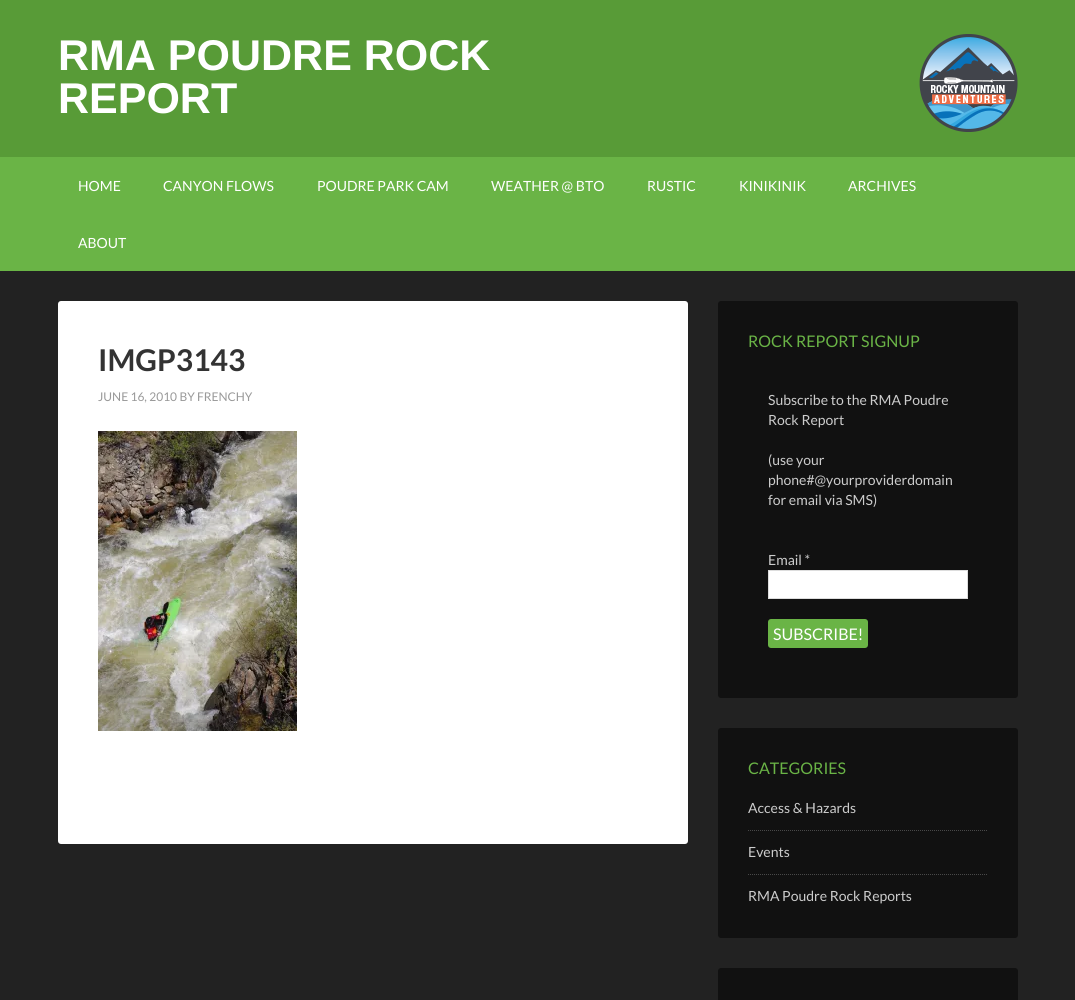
#include <cairo/cairo.h>
#include <math.h>
#include <stddef.h>


static void rounded_rect(cairo_t *cr, double x, double y, double w, double h, double r) {
  cairo_new_sub_path(cr);
  cairo_arc(cr, x + w - r, y + h - r, r, 0, M_PI / 2);
  cairo_arc(cr, x + r, y + h - r, r, M_PI / 2, M_PI);
  cairo_arc(cr, x + r, y + r, r, M_PI, 1.5 * M_PI);
  cairo_arc(cr, x + w - r, y + r, r, 1.5 * M_PI, 2 * M_PI);
  cairo_close_path(cr);
}

static void draw_image(cairo_t *cr, const char *path, double x, double y, double w, double h) {
  cairo_surface_t *image = cairo_image_surface_create_from_png(path);
  cairo_save(cr);
  cairo_set_source_surface(cr, image, x, y);
  cairo_rectangle(cr, x, y, w, h);
  cairo_fill(cr);
  cairo_restore(cr);
  cairo_surface_destroy(image);
}

static void draw(cairo_t *cr) {
  cairo_set_source_rgb(cr, 34 / 255.0, 34 / 255.0, 34 / 255.0);
  cairo_paint(cr);
  cairo_set_source_rgb(cr, 88 / 255.0, 155 / 255.0, 55 / 255.0);
  cairo_rectangle(cr, 0, 0, 1075, 157);
  cairo_fill(cr);
  draw_image(cr, "images/1.png", 919, 34, 99, 98);
  cairo_set_source_rgb(cr, 106 / 255.0, 180 / 255.0, 70 / 255.0);
  cairo_rectangle(cr, 0, 157, 1075, 114);
  cairo_fill(cr);
  cairo_set_source_rgb(cr, 1, 1, 1);
  rounded_rect(cr, 58, 301, 630, 543, 3);
  cairo_fill(cr);
  draw_image(cr, "images/2.png", 98, 431, 199, 300);
  cairo_set_source_rgb(cr, 17 / 255.0, 17 / 255.0, 17 / 255.0);
  rounded_rect(cr, 718, 301, 300, 397, 3);
  cairo_fill(cr);
  cairo_set_source_rgb(cr, 1, 1, 1);
  cairo_rectangle(cr, 768.5, 570.5, 199, 28);
  cairo_fill_preserve(cr);
  cairo_set_source_rgb(cr, 221 / 255.0, 221 / 255.0, 221 / 255.0);
  cairo_set_line_width(cr, 1);
  cairo_stroke(cr);
  cairo_set_source_rgb(cr, 106 / 255.0, 180 / 255.0, 70 / 255.0);
  rounded_rect(cr, 768, 619, 100, 29, 3);
  cairo_fill(cr);
  cairo_set_source_rgb(cr, 17 / 255.0, 17 / 255.0, 17 / 255.0);
  rounded_rect(cr, 718, 728, 300, 210, 3);
  cairo_fill(cr);
  cairo_new_path(cr);
  cairo_move_to(cr, 748, 830.5);
  cairo_line_to(cr, 988, 830.5);
  cairo_set_source_rgb(cr, 73 / 255.0, 73 / 255.0, 73 / 255.0);
  cairo_set_dash(cr, (double[]){1, 1}, 2, 0);
  cairo_stroke(cr);
  cairo_new_path(cr);
  cairo_move_to(cr, 748, 874.5);
  cairo_line_to(cr, 988, 874.5);
  cairo_stroke(cr);
  cairo_set_source_rgb(cr, 17 / 255.0, 17 / 255.0, 17 / 255.0);
  rounded_rect(cr, 718, 968, 300, 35, 3);
  cairo_fill(cr);
  cairo_select_font_face(cr, "Liberation Sans", CAIRO_FONT_SLANT_NORMAL, CAIRO_FONT_WEIGHT_BOLD);
  cairo_set_font_size(cr, 43);
  cairo_set_source_rgb(cr, 1, 1, 1);
  cairo_move_to(cr, 58, 70);
  cairo_show_text(cr, "RMA POUDRE ROCK");
  cairo_move_to(cr, 58, 113);
  cairo_show_text(cr, "REPORT");
  cairo_select_font_face(cr, "Lato", CAIRO_FONT_SLANT_NORMAL, CAIRO_FONT_WEIGHT_NORMAL);
  cairo_set_font_size(cr, 14);
  cairo_move_to(cr, 78, 191);
  cairo_show_text(cr, "HOME");
  cairo_move_to(cr, 163, 191);
  cairo_show_text(cr, "CANYON FLOWS");
  cairo_move_to(cr, 317, 191);
  cairo_show_text(cr, "POUDRE PARK CAM");
  cairo_move_to(cr, 491, 191);
  cairo_show_text(cr, "WEATHER @ BTO");
  cairo_move_to(cr, 647, 191);
  cairo_show_text(cr, "RUSTIC");
  cairo_move_to(cr, 739, 191);
  cairo_show_text(cr, "KINIKINIK");
  cairo_move_to(cr, 848, 191);
  cairo_show_text(cr, "ARCHIVES");
  cairo_move_to(cr, 78, 248);
  cairo_show_text(cr, "ABOUT");
  cairo_select_font_face(cr, "Lato", CAIRO_FONT_SLANT_NORMAL, CAIRO_FONT_WEIGHT_BOLD);
  cairo_set_font_size(cr, 30);
  cairo_set_source_rgb(cr, 51 / 255.0, 51 / 255.0, 51 / 255.0);
  cairo_move_to(cr, 98, 371);
  cairo_show_text(cr, "IMGP3143");
  cairo_select_font_face(cr, "Lato", CAIRO_FONT_SLANT_NORMAL, CAIRO_FONT_WEIGHT_NORMAL);
  cairo_set_font_size(cr, 12);
  cairo_set_source_rgb(cr, 153 / 255.0, 153 / 255.0, 153 / 255.0);
  cairo_move_to(cr, 98, 401);
  cairo_show_text(cr, "JUNE 16, 2010 BY FRENCHY");
  cairo_set_font_size(cr, 16);
  cairo_set_source_rgb(cr, 106 / 255.0, 180 / 255.0, 70 / 255.0);
  cairo_move_to(cr, 748, 347);
  cairo_show_text(cr, "ROCK REPORT SIGNUP");
  cairo_set_font_size(cr, 14);
  cairo_set_source_rgb(cr, 204 / 255.0, 204 / 255.0, 204 / 255.0);
  cairo_move_to(cr, 768, 405);
  cairo_show_text(cr, "Subscribe to the RMA Poudre");
  cairo_move_to(cr, 768, 425);
  cairo_show_text(cr, "Rock Report");
  cairo_move_to(cr, 768, 465);
  cairo_show_text(cr, "(use your");
  cairo_move_to(cr, 768, 485);
  cairo_show_text(cr, "phone#@yourproviderdomain");
  cairo_move_to(cr, 768, 505);
  cairo_show_text(cr, "for email via SMS)");
  cairo_move_to(cr, 768, 565);
  cairo_show_text(cr, "Email *");
  cairo_set_font_size(cr, 16);
  cairo_set_source_rgb(cr, 1, 1, 1);
  cairo_move_to(cr, 773, 640);
  cairo_show_text(cr, "SUBSCRIBE!");
  cairo_set_source_rgb(cr, 106 / 255.0, 180 / 255.0, 70 / 255.0);
  cairo_move_to(cr, 748, 774);
  cairo_show_text(cr, "CATEGORIES");
  cairo_set_font_size(cr, 14);
  cairo_set_source_rgb(cr, 204 / 255.0, 204 / 255.0, 204 / 255.0);
  cairo_move_to(cr, 748, 813);
  cairo_show_text(cr, "Access & Hazards");
  cairo_move_to(cr, 748, 857);
  cairo_show_text(cr, "Events");
  cairo_move_to(cr, 748, 901);
  cairo_show_text(cr, "RMA Poudre Rock Reports");
}

int main(void) {
  cairo_surface_t *surface = cairo_image_surface_create(CAIRO_FORMAT_RGB24, 1075, 1000);
  cairo_t *cr = cairo_create(surface);
  cairo_font_options_t *options = cairo_font_options_create();
  cairo_font_options_set_hint_metrics(options, CAIRO_HINT_METRICS_OFF);
  cairo_font_options_set_hint_style(options, CAIRO_HINT_STYLE_NONE);
  cairo_set_font_options(cr, options);
  cairo_set_miter_limit(cr, 4);
  draw(cr);
  cairo_surface_write_to_png(surface, "out.png");
  cairo_font_options_destroy(options);
  cairo_destroy(cr);
  cairo_surface_destroy(surface);
  return 0;
}
